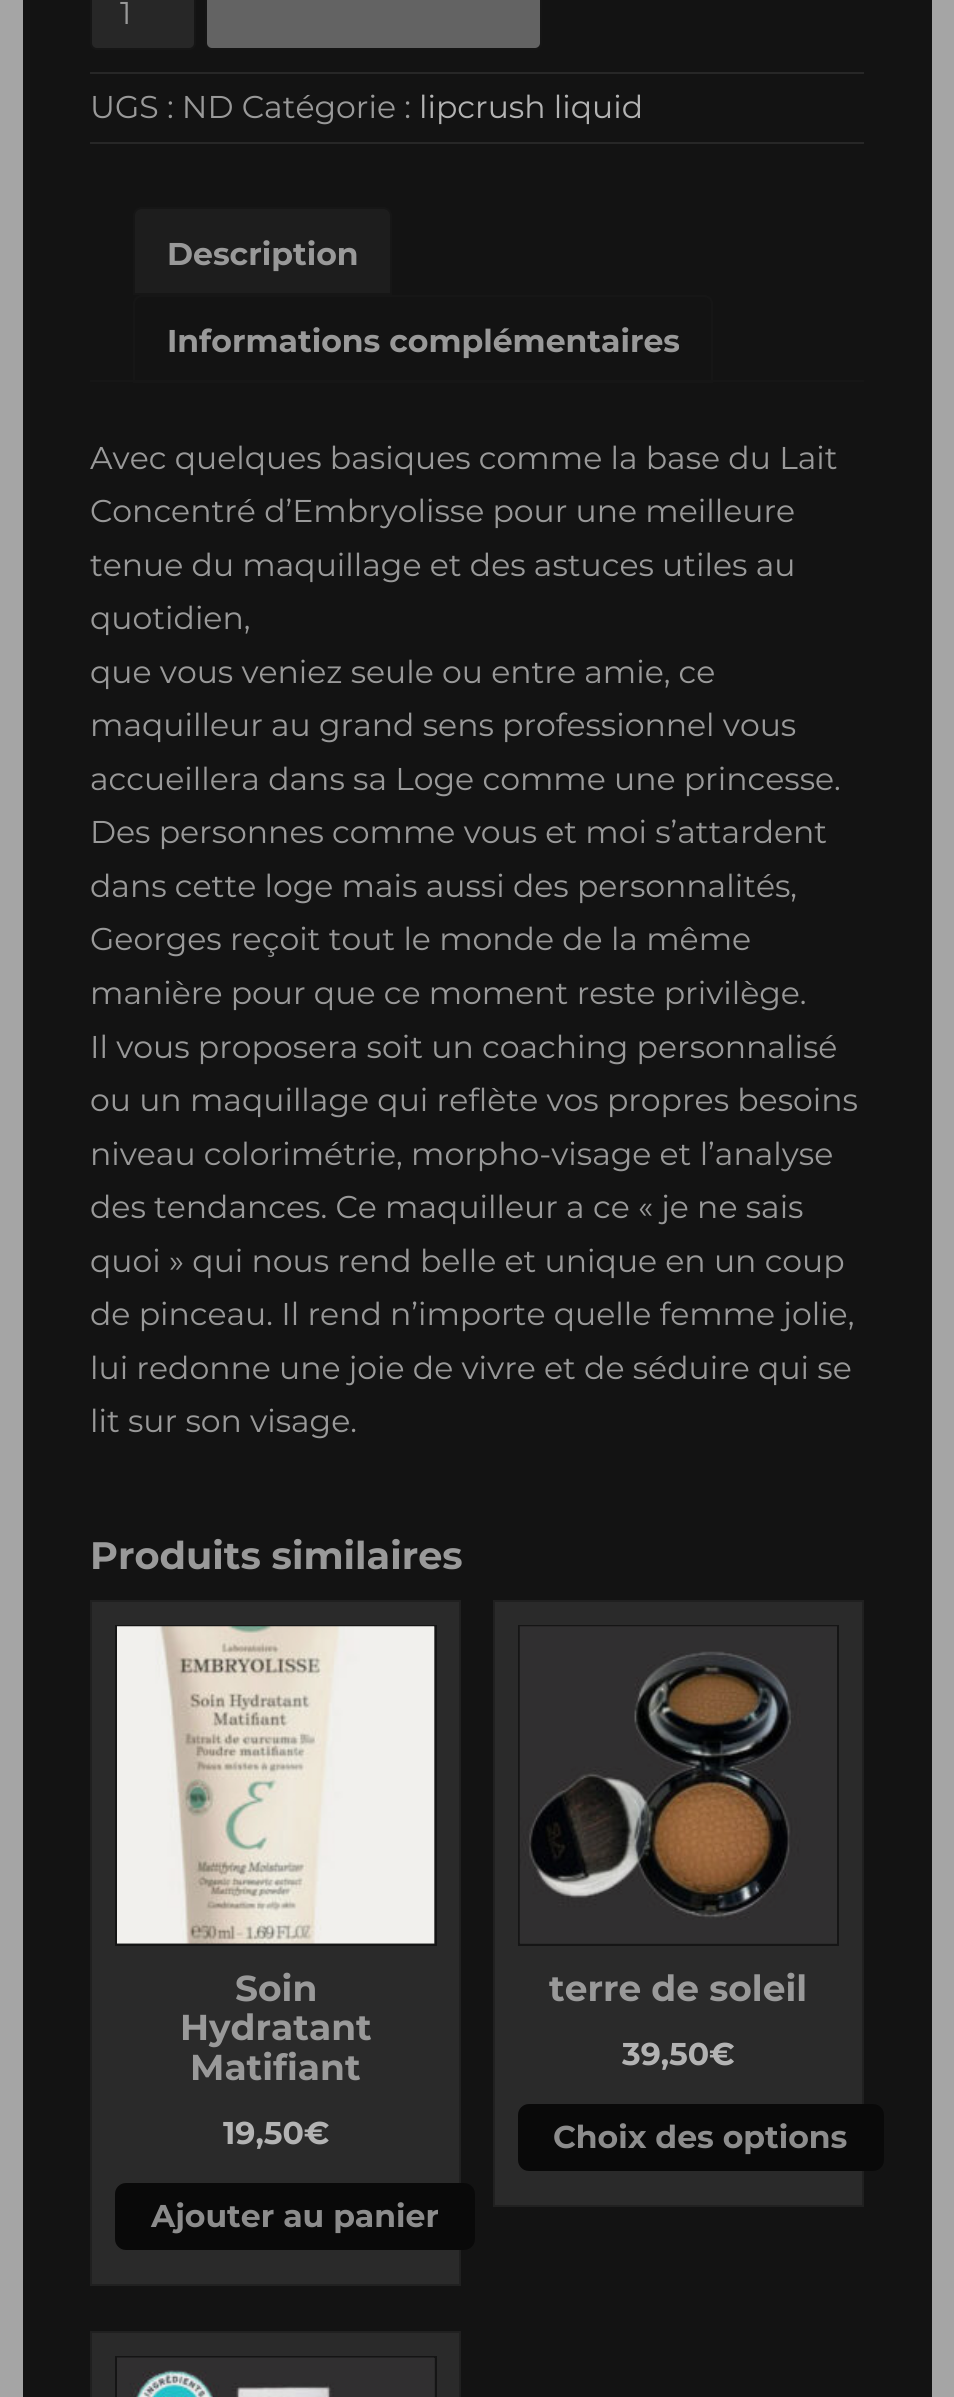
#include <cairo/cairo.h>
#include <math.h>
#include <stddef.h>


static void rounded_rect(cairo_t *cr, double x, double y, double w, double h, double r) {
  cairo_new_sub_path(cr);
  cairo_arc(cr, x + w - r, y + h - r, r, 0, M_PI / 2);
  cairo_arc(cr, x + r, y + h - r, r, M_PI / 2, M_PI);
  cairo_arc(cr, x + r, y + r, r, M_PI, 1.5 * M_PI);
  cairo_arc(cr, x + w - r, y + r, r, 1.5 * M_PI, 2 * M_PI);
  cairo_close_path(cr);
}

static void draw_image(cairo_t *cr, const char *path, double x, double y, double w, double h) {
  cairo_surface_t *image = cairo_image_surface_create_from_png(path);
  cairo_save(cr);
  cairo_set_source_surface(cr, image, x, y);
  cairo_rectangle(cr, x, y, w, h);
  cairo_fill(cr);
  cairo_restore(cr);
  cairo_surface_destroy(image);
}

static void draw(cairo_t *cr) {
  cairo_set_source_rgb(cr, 165 / 255.0, 165 / 255.0, 165 / 255.0);
  cairo_paint(cr);
  cairo_set_source_rgb(cr, 19 / 255.0, 19 / 255.0, 19 / 255.0);
  cairo_rectangle(cr, 23, 0, 909, 2397);
  cairo_fill(cr);
  cairo_set_source_rgb(cr, 39 / 255.0, 39 / 255.0, 39 / 255.0);
  rounded_rect(cr, 91, -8, 104, 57, 6);
  cairo_fill_preserve(cr);
  cairo_set_source_rgb(cr, 22 / 255.0, 22 / 255.0, 22 / 255.0);
  cairo_stroke(cr);
  cairo_set_source_rgb(cr, 99 / 255.0, 99 / 255.0, 99 / 255.0);
  rounded_rect(cr, 206, -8, 335, 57, 6);
  cairo_fill_preserve(cr);
  cairo_set_source_rgb(cr, 21 / 255.0, 21 / 255.0, 21 / 255.0);
  cairo_stroke(cr);
  cairo_set_source_rgb(cr, 39 / 255.0, 39 / 255.0, 39 / 255.0);
  cairo_rectangle(cr, 90, 72, 774, 2);
  cairo_fill(cr);
  cairo_rectangle(cr, 90, 142, 774, 2);
  cairo_fill(cr);
  cairo_set_source_rgb(cr, 29 / 255.0, 29 / 255.0, 29 / 255.0);
  cairo_new_path(cr);
  cairo_move_to(cr, 142, 208);
  cairo_line_to(cr, 383, 208);
  cairo_curve_to(cr, 387.5, 208, 391, 211.5, 391, 216);
  cairo_line_to(cr, 391, 294);
  cairo_line_to(cr, 134, 294);
  cairo_line_to(cr, 134, 216);
  cairo_curve_to(cr, 134, 211.5, 137.5, 208, 142, 208);
  cairo_close_path(cr);
  cairo_fill_preserve(cr);
  cairo_set_source_rgb(cr, 22 / 255.0, 22 / 255.0, 22 / 255.0);
  cairo_stroke(cr);
  cairo_new_path(cr);
  cairo_move_to(cr, 142, 296);
  cairo_line_to(cr, 704, 296);
  cairo_curve_to(cr, 708.5, 296, 712, 299.5, 712, 304);
  cairo_line_to(cr, 712, 382);
  cairo_line_to(cr, 134, 382);
  cairo_line_to(cr, 134, 304);
  cairo_curve_to(cr, 134, 299.5, 137.5, 296, 142, 296);
  cairo_close_path(cr);
  cairo_stroke(cr);
  cairo_rectangle(cr, 90, 380, 774, 2);
  cairo_fill(cr);
  cairo_set_source_rgb(cr, 42 / 255.0, 42 / 255.0, 42 / 255.0);
  cairo_rectangle(cr, 91, 1601, 369, 684);
  cairo_fill_preserve(cr);
  cairo_set_source_rgb(cr, 32 / 255.0, 32 / 255.0, 32 / 255.0);
  cairo_stroke(cr);
  cairo_rectangle(cr, 116, 1626, 320, 319);
  cairo_set_source_rgb(cr, 21 / 255.0, 21 / 255.0, 21 / 255.0);
  cairo_stroke(cr);
  draw_image(cr, "images/1.png", 117, 1626, 318, 318);
  cairo_set_source_rgb(cr, 9 / 255.0, 9 / 255.0, 9 / 255.0);
  rounded_rect(cr, 115, 2183, 360, 67, 11);
  cairo_fill(cr);
  cairo_set_source_rgb(cr, 42 / 255.0, 42 / 255.0, 42 / 255.0);
  cairo_rectangle(cr, 494, 1601, 369, 605);
  cairo_fill_preserve(cr);
  cairo_set_source_rgb(cr, 32 / 255.0, 32 / 255.0, 32 / 255.0);
  cairo_stroke(cr);
  cairo_rectangle(cr, 519, 1626, 319, 319);
  cairo_set_source_rgb(cr, 21 / 255.0, 21 / 255.0, 21 / 255.0);
  cairo_stroke(cr);
  draw_image(cr, "images/2.png", 519, 1626, 318, 317);
  cairo_set_source_rgb(cr, 9 / 255.0, 9 / 255.0, 9 / 255.0);
  rounded_rect(cr, 518, 2104, 366, 67, 11);
  cairo_fill(cr);
  cairo_set_source_rgb(cr, 42 / 255.0, 42 / 255.0, 42 / 255.0);
  cairo_rectangle(cr, 91, 2332, 369, 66);
  cairo_fill_preserve(cr);
  cairo_set_source_rgb(cr, 32 / 255.0, 32 / 255.0, 32 / 255.0);
  cairo_stroke(cr);
  cairo_rectangle(cr, 116, 2357, 320, 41);
  cairo_set_source_rgb(cr, 21 / 255.0, 21 / 255.0, 21 / 255.0);
  cairo_stroke(cr);
  draw_image(cr, "images/3.png", 117, 2357, 317, 40);
  cairo_select_font_face(cr, "Montserrat", CAIRO_FONT_SLANT_NORMAL, CAIRO_FONT_WEIGHT_NORMAL);
  cairo_set_font_size(cr, 31.5);
  cairo_set_source_rgb(cr, 153 / 255.0, 153 / 255.0, 153 / 255.0);
  cairo_move_to(cr, 120, 24);
  cairo_show_text(cr, "1");
  cairo_move_to(cr, 90, 118);
  cairo_show_text(cr, "UGS : ND Catégorie :");
  cairo_set_source_rgb(cr, 179 / 255.0, 179 / 255.0, 179 / 255.0);
  cairo_move_to(cr, 419, 118);
  cairo_show_text(cr, "lipcrush liquid");
  cairo_select_font_face(cr, "Montserrat", CAIRO_FONT_SLANT_NORMAL, CAIRO_FONT_WEIGHT_BOLD);
  cairo_set_source_rgb(cr, 153 / 255.0, 153 / 255.0, 153 / 255.0);
  cairo_move_to(cr, 167, 265);
  cairo_show_text(cr, "Description");
  cairo_move_to(cr, 167, 352);
  cairo_show_text(cr, "Informations complémentaires");
  cairo_select_font_face(cr, "Montserrat", CAIRO_FONT_SLANT_NORMAL, CAIRO_FONT_WEIGHT_NORMAL);
  cairo_move_to(cr, 90, 469);
  cairo_show_text(cr, "Avec quelques basiques comme la base du Lait");
  cairo_move_to(cr, 90, 522);
  cairo_show_text(cr, "Concentré d’Embryolisse pour une meilleure");
  cairo_move_to(cr, 90, 576);
  cairo_show_text(cr, "tenue du maquillage et des astuces utiles au");
  cairo_move_to(cr, 90, 629);
  cairo_show_text(cr, "quotidien,");
  cairo_move_to(cr, 90, 683);
  cairo_show_text(cr, "que vous veniez seule ou entre amie, ce");
  cairo_move_to(cr, 90, 736);
  cairo_show_text(cr, "maquilleur au grand sens professionnel vous");
  cairo_move_to(cr, 90, 790);
  cairo_show_text(cr, "accueillera dans sa Loge comme une princesse.");
  cairo_move_to(cr, 90, 843);
  cairo_show_text(cr, "Des personnes comme vous et moi s’attardent");
  cairo_move_to(cr, 90, 897);
  cairo_show_text(cr, "dans cette loge mais aussi des personnalités,");
  cairo_move_to(cr, 90, 950);
  cairo_show_text(cr, "Georges reçoit tout le monde de la même");
  cairo_move_to(cr, 90, 1004);
  cairo_show_text(cr, "manière pour que ce moment reste privilège.");
  cairo_move_to(cr, 90, 1058);
  cairo_show_text(cr, "Il vous proposera soit un coaching personnalisé");
  cairo_move_to(cr, 90, 1111);
  cairo_show_text(cr, "ou un maquillage qui reflète vos propres besoins");
  cairo_move_to(cr, 90, 1165);
  cairo_show_text(cr, "niveau colorimétrie, morpho-visage et l’analyse");
  cairo_move_to(cr, 90, 1218);
  cairo_show_text(cr, "des tendances. Ce maquilleur a ce « je ne sais");
  cairo_move_to(cr, 90, 1272);
  cairo_show_text(cr, "quoi » qui nous rend belle et unique en un coup");
  cairo_move_to(cr, 90, 1325);
  cairo_show_text(cr, "de pinceau. Il rend n’importe quelle femme jolie,");
  cairo_move_to(cr, 90, 1379);
  cairo_show_text(cr, "lui redonne une joie de vivre et de séduire qui se");
  cairo_move_to(cr, 90, 1432);
  cairo_show_text(cr, "lit sur son visage.");
  cairo_select_font_face(cr, "Montserrat", CAIRO_FONT_SLANT_NORMAL, CAIRO_FONT_WEIGHT_BOLD);
  cairo_set_font_size(cr, 38.25);
  cairo_move_to(cr, 90, 1569);
  cairo_show_text(cr, "Produits similaires");
  cairo_set_font_size(cr, 36);
  cairo_move_to(cr, 235, 2001);
  cairo_show_text(cr, "Soin");
  cairo_move_to(cr, 180, 2040);
  cairo_show_text(cr, "Hydratant");
  cairo_move_to(cr, 190, 2080);
  cairo_show_text(cr, "Matifiant");
  cairo_set_font_size(cr, 31.5);
  cairo_set_source_rgb(cr, 179 / 255.0, 179 / 255.0, 179 / 255.0);
  cairo_move_to(cr, 223, 2144);
  cairo_show_text(cr, "19,50€");
  cairo_set_source_rgb(cr, 140 / 255.0, 140 / 255.0, 140 / 255.0);
  cairo_move_to(cr, 151, 2227);
  cairo_show_text(cr, "Ajouter au panier");
  cairo_set_font_size(cr, 36);
  cairo_set_source_rgb(cr, 153 / 255.0, 153 / 255.0, 153 / 255.0);
  cairo_move_to(cr, 549, 2001);
  cairo_show_text(cr, "terre de soleil");
  cairo_set_font_size(cr, 31.5);
  cairo_set_source_rgb(cr, 179 / 255.0, 179 / 255.0, 179 / 255.0);
  cairo_move_to(cr, 622, 2065);
  cairo_show_text(cr, "39,50€");
  cairo_set_source_rgb(cr, 140 / 255.0, 140 / 255.0, 140 / 255.0);
  cairo_move_to(cr, 553, 2148);
  cairo_show_text(cr, "Choix des options");
}

int main(void) {
  cairo_surface_t *surface = cairo_image_surface_create(CAIRO_FORMAT_RGB24, 954, 2397);
  cairo_t *cr = cairo_create(surface);
  cairo_font_options_t *options = cairo_font_options_create();
  cairo_font_options_set_hint_metrics(options, CAIRO_HINT_METRICS_OFF);
  cairo_font_options_set_hint_style(options, CAIRO_HINT_STYLE_NONE);
  cairo_set_font_options(cr, options);
  cairo_set_miter_limit(cr, 4);
  draw(cr);
  cairo_surface_write_to_png(surface, "out.png");
  cairo_font_options_destroy(options);
  cairo_destroy(cr);
  cairo_surface_destroy(surface);
  return 0;
}
